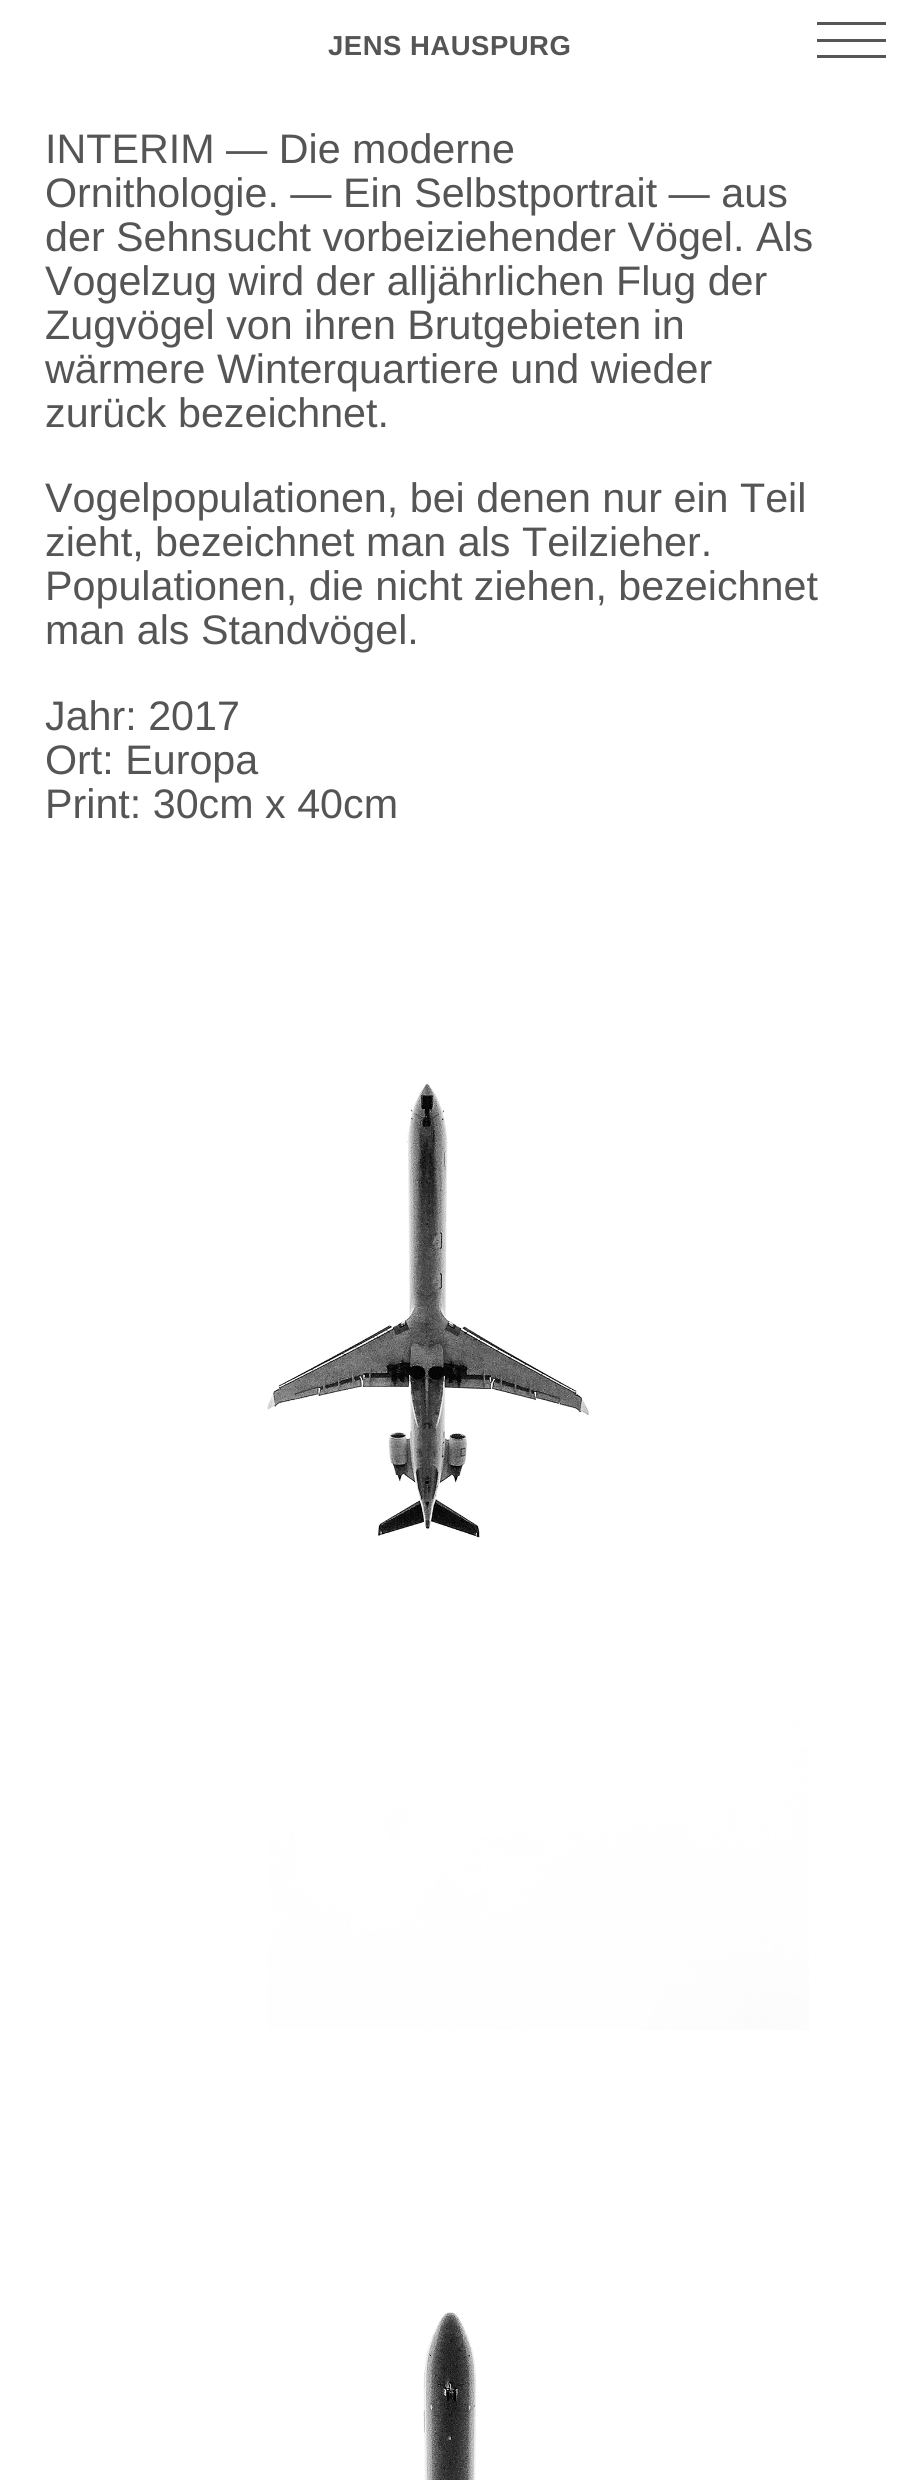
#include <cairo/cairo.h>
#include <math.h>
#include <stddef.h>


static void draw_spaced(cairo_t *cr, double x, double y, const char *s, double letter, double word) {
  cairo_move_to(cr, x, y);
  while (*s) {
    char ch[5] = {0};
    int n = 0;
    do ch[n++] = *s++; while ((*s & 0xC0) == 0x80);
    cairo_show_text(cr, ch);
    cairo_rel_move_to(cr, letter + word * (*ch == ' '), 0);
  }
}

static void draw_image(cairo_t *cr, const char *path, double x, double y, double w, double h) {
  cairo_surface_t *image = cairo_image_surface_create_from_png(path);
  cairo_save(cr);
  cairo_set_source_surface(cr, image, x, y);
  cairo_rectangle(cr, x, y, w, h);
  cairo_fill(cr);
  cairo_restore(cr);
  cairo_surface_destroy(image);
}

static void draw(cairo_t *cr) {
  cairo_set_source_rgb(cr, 1, 1, 1);
  cairo_paint(cr);
  cairo_set_source_rgb(cr, 85 / 255.0, 85 / 255.0, 85 / 255.0);
  cairo_rectangle(cr, 817, 39, 69, 3);
  cairo_fill(cr);
  cairo_rectangle(cr, 817, 22, 69, 3);
  cairo_fill(cr);
  cairo_rectangle(cr, 817, 55, 69, 3);
  cairo_fill(cr);
  draw_image(cr, "images/1.png", 267, 1084, 542, 946);
  draw_image(cr, "images/2.png", 423, 2312, 55, 168);
  cairo_select_font_face(cr, "Liberation Sans", CAIRO_FONT_SLANT_NORMAL, CAIRO_FONT_WEIGHT_BOLD);
  cairo_set_font_size(cr, 27.5);
  draw_spaced(cr, 328, 55, "JENS HAUSPURG", 0.5, 0);
  cairo_select_font_face(cr, "Liberation Sans", CAIRO_FONT_SLANT_NORMAL, CAIRO_FONT_WEIGHT_NORMAL);
  cairo_set_font_size(cr, 41.25);
  cairo_move_to(cr, 45, 163);
  cairo_show_text(cr, "INTERIM — Die moderne");
  cairo_move_to(cr, 45, 207);
  cairo_show_text(cr, "Ornithologie. — Ein Selbstportrait — aus");
  cairo_move_to(cr, 45, 251);
  cairo_show_text(cr, "der Sehnsucht vorbeiziehender Vögel. Als");
  cairo_move_to(cr, 45, 295);
  cairo_show_text(cr, "Vogelzug wird der alljährlichen Flug der");
  cairo_move_to(cr, 45, 339);
  cairo_show_text(cr, "Zugvögel von ihren Brutgebieten in");
  cairo_move_to(cr, 45, 383);
  cairo_show_text(cr, "wärmere Winterquartiere und wieder");
  cairo_move_to(cr, 45, 427);
  cairo_show_text(cr, "zurück bezeichnet.");
  cairo_move_to(cr, 45, 512);
  cairo_show_text(cr, "Vogelpopulationen, bei denen nur ein Teil");
  cairo_move_to(cr, 45, 556);
  cairo_show_text(cr, "zieht, bezeichnet man als Teilzieher.");
  cairo_move_to(cr, 45, 600);
  cairo_show_text(cr, "Populationen, die nicht ziehen, bezeichnet");
  cairo_move_to(cr, 45, 644);
  cairo_show_text(cr, "man als Standvögel.");
  cairo_move_to(cr, 45, 730);
  cairo_show_text(cr, "Jahr: 2017");
  cairo_move_to(cr, 45, 774);
  cairo_show_text(cr, "Ort: Europa");
  cairo_move_to(cr, 45, 818);
  cairo_show_text(cr, "Print: 30cm x 40cm");
}

int main(void) {
  cairo_surface_t *surface = cairo_image_surface_create(CAIRO_FORMAT_RGB24, 897, 2480);
  cairo_t *cr = cairo_create(surface);
  cairo_font_options_t *options = cairo_font_options_create();
  cairo_font_options_set_hint_metrics(options, CAIRO_HINT_METRICS_OFF);
  cairo_font_options_set_hint_style(options, CAIRO_HINT_STYLE_NONE);
  cairo_set_font_options(cr, options);
  cairo_set_miter_limit(cr, 4);
  draw(cr);
  cairo_surface_write_to_png(surface, "out.png");
  cairo_font_options_destroy(options);
  cairo_destroy(cr);
  cairo_surface_destroy(surface);
  return 0;
}
